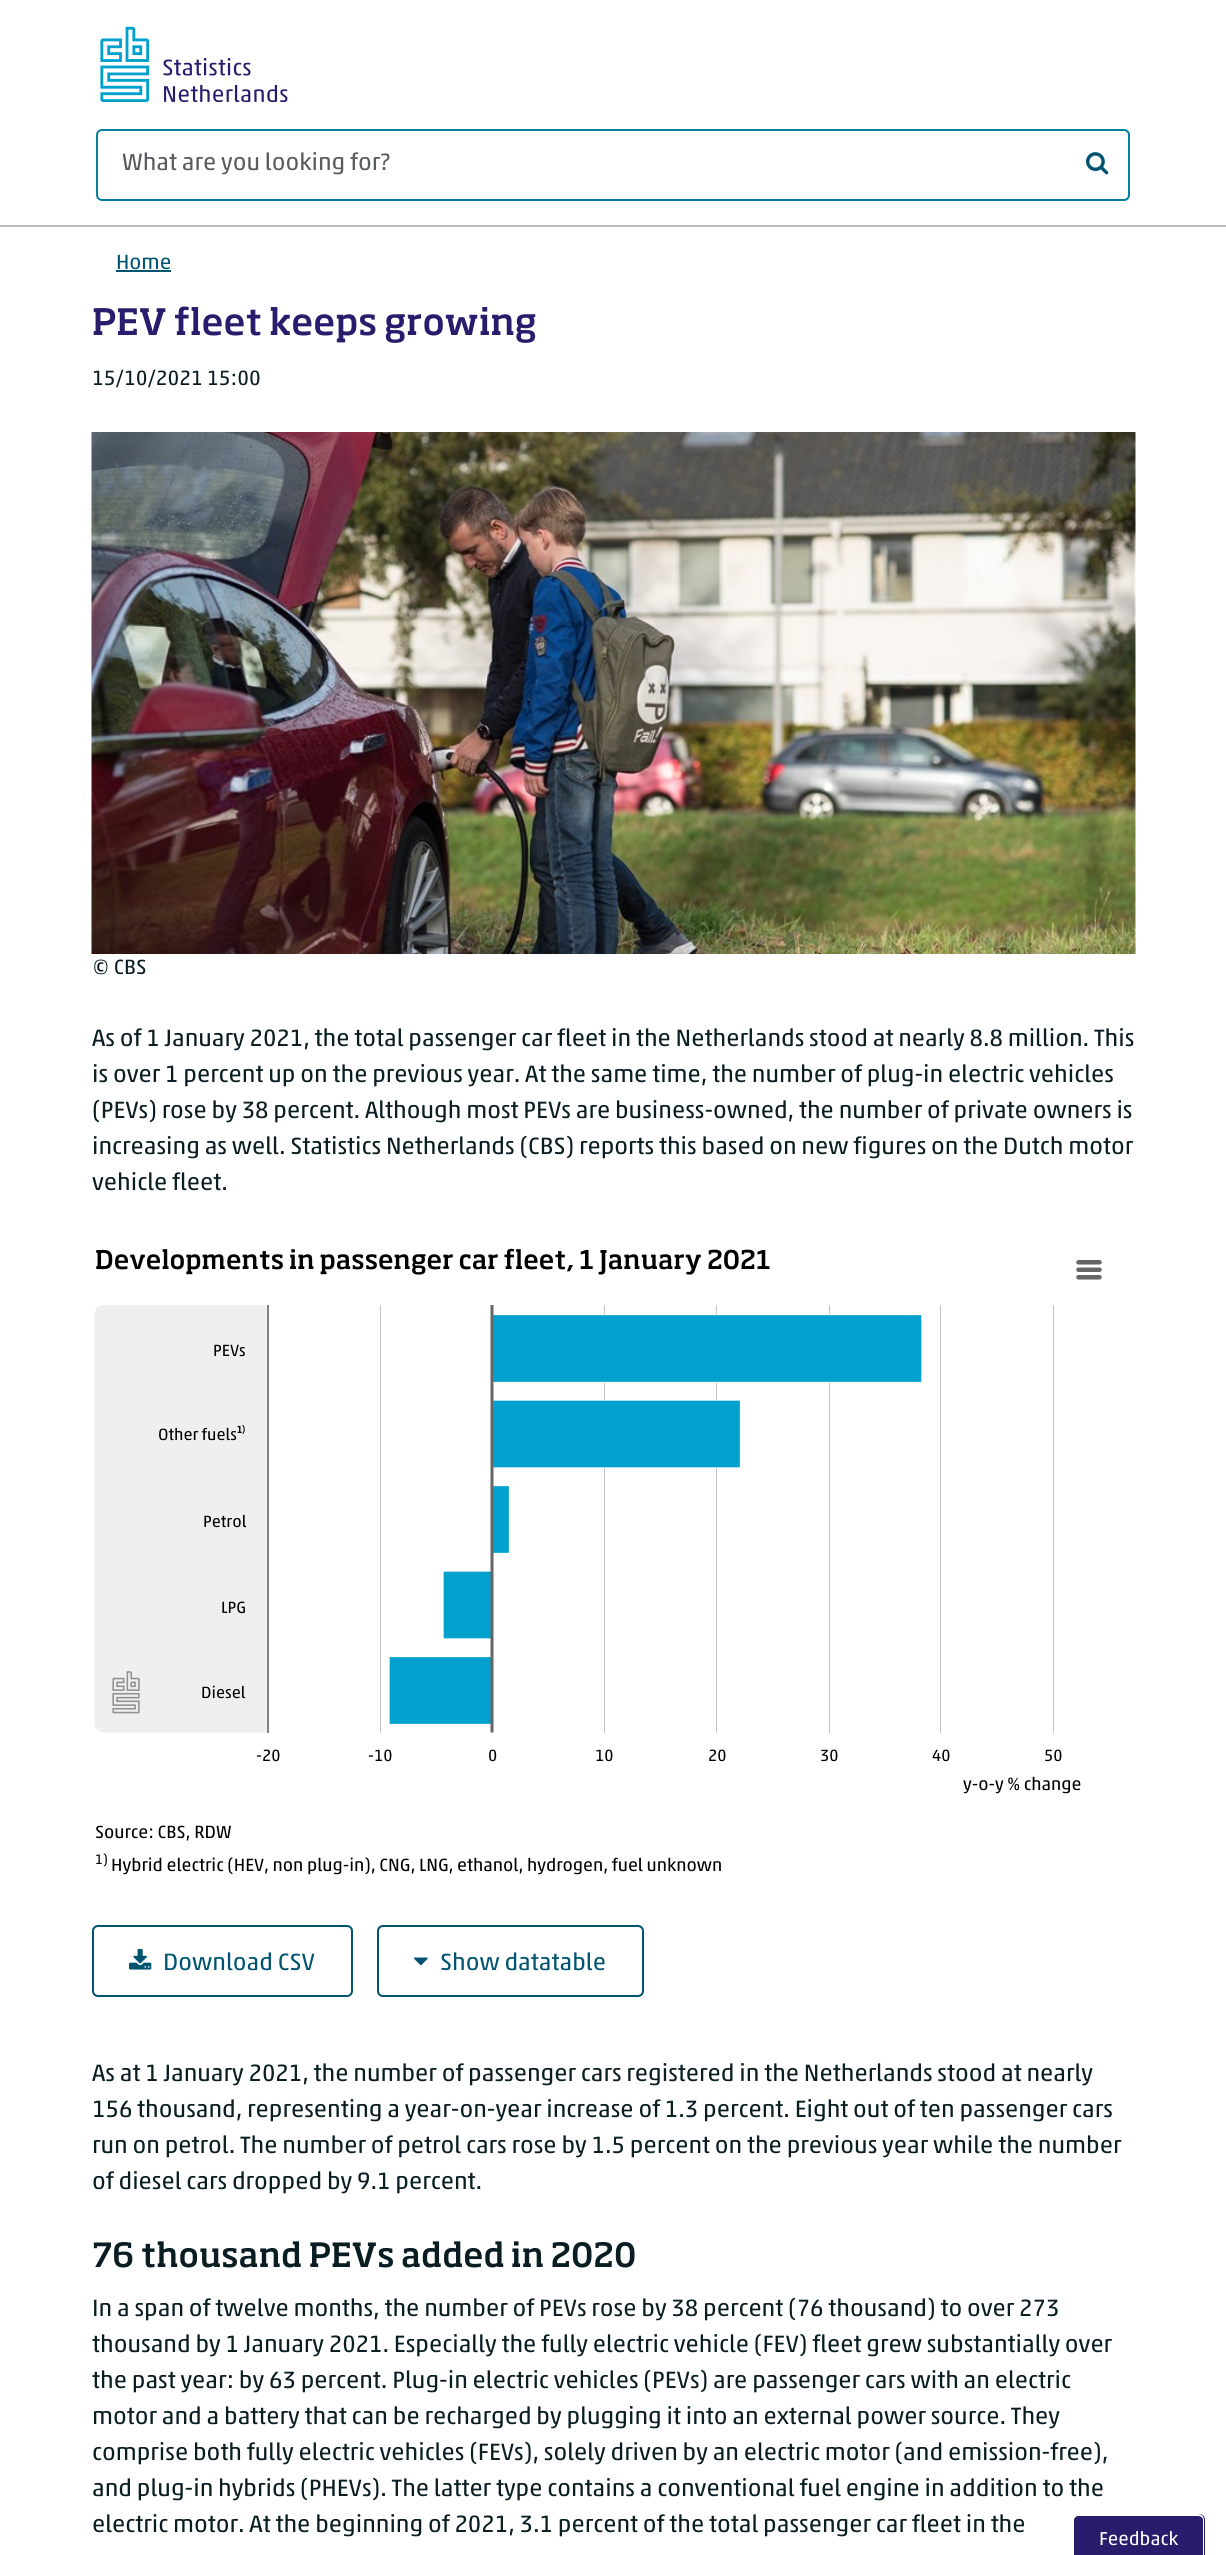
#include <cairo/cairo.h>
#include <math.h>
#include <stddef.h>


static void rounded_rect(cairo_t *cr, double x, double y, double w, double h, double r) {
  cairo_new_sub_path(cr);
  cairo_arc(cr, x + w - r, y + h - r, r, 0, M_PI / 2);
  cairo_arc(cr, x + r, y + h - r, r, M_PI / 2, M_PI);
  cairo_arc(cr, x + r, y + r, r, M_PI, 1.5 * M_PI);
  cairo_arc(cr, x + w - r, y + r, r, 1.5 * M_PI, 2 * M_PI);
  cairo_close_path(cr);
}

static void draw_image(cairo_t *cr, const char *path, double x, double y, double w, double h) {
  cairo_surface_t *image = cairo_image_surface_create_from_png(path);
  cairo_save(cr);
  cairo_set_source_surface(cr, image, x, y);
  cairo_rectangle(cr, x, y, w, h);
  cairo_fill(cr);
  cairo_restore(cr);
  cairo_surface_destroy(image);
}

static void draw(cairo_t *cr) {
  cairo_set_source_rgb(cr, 1, 1, 1);
  cairo_paint(cr);
  draw_image(cr, "images/1.png", 100, 26, 188, 77);
  rounded_rect(cr, 97, 130, 1032, 70, 5);
  cairo_set_source_rgb(cr, 5 / 255.0, 128 / 255.0, 161 / 255.0);
  cairo_stroke(cr);
  draw_image(cr, "images/2.png", 1086, 152, 23, 23);
  cairo_set_source_rgb(cr, 189 / 255.0, 188 / 255.0, 188 / 255.0);
  cairo_rectangle(cr, 0, 225, 1226, 2);
  cairo_fill(cr);
  cairo_set_source_rgb(cr, 0, 84 / 255.0, 112 / 255.0);
  cairo_rectangle(cr, 116, 270, 55, 2);
  cairo_fill(cr);
  draw_image(cr, "images/3.png", 91, 432, 1045, 522);
  draw_image(cr, "images/4.png", 94, 1260, 1008, 473);
  rounded_rect(cr, 93, 1926, 259, 70, 5);
  cairo_stroke(cr);
  draw_image(cr, "images/5.png", 129, 1948, 23, 22);
  rounded_rect(cr, 378, 1926, 265, 70, 5);
  cairo_stroke(cr);
  draw_image(cr, "images/6.png", 414, 1957, 14, 9);
  cairo_set_source_rgb(cr, 39 / 255.0, 29 / 255.0, 108 / 255.0);
  cairo_new_path(cr);
  cairo_move_to(cr, 1079, 2514);
  cairo_line_to(cr, 1199, 2514);
  cairo_curve_to(cr, 1202.5, 2514, 1205, 2516.5, 1205, 2520);
  cairo_line_to(cr, 1205, 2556);
  cairo_line_to(cr, 1073, 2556);
  cairo_line_to(cr, 1073, 2520);
  cairo_curve_to(cr, 1073, 2516.5, 1075.5, 2514, 1079, 2514);
  cairo_close_path(cr);
  cairo_fill(cr);
  cairo_set_source_rgb(cr, 1, 1, 1);
  cairo_set_fill_rule(cr, CAIRO_FILL_RULE_EVEN_ODD);
  cairo_new_path(cr);
  cairo_move_to(cr, 1078, 2514);
  cairo_line_to(cr, 1198, 2514);
  cairo_curve_to(cr, 1202, 2514, 1204, 2517, 1204, 2520);
  cairo_line_to(cr, 1204, 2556);
  cairo_line_to(cr, 1072, 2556);
  cairo_line_to(cr, 1072, 2520);
  cairo_curve_to(cr, 1072, 2517, 1075, 2514, 1078, 2514);
  cairo_close_path(cr);
  cairo_move_to(cr, 1078, 2516);
  cairo_line_to(cr, 1198, 2516);
  cairo_curve_to(cr, 1201, 2516, 1203, 2518, 1203, 2520);
  cairo_line_to(cr, 1203, 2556);
  cairo_line_to(cr, 1074, 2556);
  cairo_line_to(cr, 1074, 2520);
  cairo_curve_to(cr, 1074, 2518, 1076, 2516, 1078, 2516);
  cairo_close_path(cr);
  cairo_fill(cr);
  cairo_select_font_face(cr, "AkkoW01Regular", CAIRO_FONT_SLANT_NORMAL, CAIRO_FONT_WEIGHT_NORMAL);
  cairo_set_font_size(cr, 24);
  cairo_set_source_rgb(cr, 89 / 255.0, 92 / 255.0, 95 / 255.0);
  cairo_move_to(cr, 122, 170);
  cairo_show_text(cr, "What are you looking for?");
  cairo_set_font_size(cr, 21);
  cairo_set_source_rgb(cr, 0, 84 / 255.0, 112 / 255.0);
  cairo_move_to(cr, 116, 269);
  cairo_show_text(cr, "Home");
  cairo_select_font_face(cr, "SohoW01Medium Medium", CAIRO_FONT_SLANT_NORMAL, CAIRO_FONT_WEIGHT_NORMAL);
  cairo_set_font_size(cr, 36);
  cairo_set_source_rgb(cr, 39 / 255.0, 29 / 255.0, 108 / 255.0);
  cairo_move_to(cr, 92, 335);
  cairo_show_text(cr, "PEV fleet keeps growing");
  cairo_select_font_face(cr, "AkkoW01Regular", CAIRO_FONT_SLANT_NORMAL, CAIRO_FONT_WEIGHT_NORMAL);
  cairo_set_font_size(cr, 21);
  cairo_set_source_rgb(cr, 9 / 255.0, 29 / 255.0, 35 / 255.0);
  cairo_move_to(cr, 92, 385);
  cairo_show_text(cr, "15/10/2021 15:00");
  cairo_move_to(cr, 92, 974);
  cairo_show_text(cr, "© CBS");
  cairo_set_font_size(cr, 24);
  cairo_move_to(cr, 92, 1046);
  cairo_show_text(cr, "As of 1 January 2021, the total passenger car fleet in the Netherlands stood at nearly 8.8 million. This");
  cairo_move_to(cr, 92, 1082);
  cairo_show_text(cr, "is over 1 percent up on the previous year. At the same time, the number of plug-in electric vehicles");
  cairo_move_to(cr, 92, 1118);
  cairo_show_text(cr, "(PEVs) rose by 38 percent. Although most PEVs are business-owned, the number of private owners is");
  cairo_move_to(cr, 92, 1154);
  cairo_show_text(cr, "increasing as well. Statistics Netherlands (CBS) reports this based on new figures on the Dutch motor");
  cairo_move_to(cr, 92, 1190);
  cairo_show_text(cr, "vehicle fleet.");
  cairo_select_font_face(cr, "SohoW01Medium Medium", CAIRO_FONT_SLANT_NORMAL, CAIRO_FONT_WEIGHT_NORMAL);
  cairo_set_font_size(cr, 25.5);
  cairo_set_source_rgb(cr, 0, 0, 0);
  cairo_move_to(cr, 95, 1269);
  cairo_show_text(cr, "Developments in passenger car fleet, 1 January 2021");
  cairo_select_font_face(cr, "AkkoW01Regular", CAIRO_FONT_SLANT_NORMAL, CAIRO_FONT_WEIGHT_NORMAL);
  cairo_set_font_size(cr, 16.5);
  cairo_move_to(cr, 213, 1356);
  cairo_show_text(cr, "PEVs");
  cairo_move_to(cr, 158, 1440);
  cairo_show_text(cr, "Other fuels¹");
  cairo_select_font_face(cr, "Noto Sans", CAIRO_FONT_SLANT_NORMAL, CAIRO_FONT_WEIGHT_NORMAL);
  cairo_move_to(cr, 242, 1440);
  cairo_show_text(cr, "⁾");
  cairo_select_font_face(cr, "AkkoW01Regular", CAIRO_FONT_SLANT_NORMAL, CAIRO_FONT_WEIGHT_NORMAL);
  cairo_move_to(cr, 203, 1527);
  cairo_show_text(cr, "Petrol");
  cairo_move_to(cr, 221, 1613);
  cairo_show_text(cr, "LPG");
  cairo_move_to(cr, 201, 1698);
  cairo_show_text(cr, "Diesel");
  cairo_move_to(cr, 256, 1761);
  cairo_show_text(cr, "-20");
  cairo_move_to(cr, 368, 1761);
  cairo_show_text(cr, "-10");
  cairo_move_to(cr, 488, 1761);
  cairo_show_text(cr, "0");
  cairo_move_to(cr, 595, 1761);
  cairo_show_text(cr, "10");
  cairo_move_to(cr, 708, 1761);
  cairo_show_text(cr, "20");
  cairo_move_to(cr, 820, 1761);
  cairo_show_text(cr, "30");
  cairo_move_to(cr, 932, 1761);
  cairo_show_text(cr, "40");
  cairo_move_to(cr, 1044, 1761);
  cairo_show_text(cr, "50");
  cairo_set_font_size(cr, 18);
  cairo_move_to(cr, 963, 1790);
  cairo_show_text(cr, "y-o-y % change");
  cairo_move_to(cr, 95, 1838);
  cairo_show_text(cr, "Source: CBS, RDW");
  cairo_set_font_size(cr, 14);
  cairo_move_to(cr, 95, 1864);
  cairo_show_text(cr, "1)");
  cairo_set_font_size(cr, 18);
  cairo_move_to(cr, 111, 1871);
  cairo_show_text(cr, "Hybrid electric (HEV, non plug-in), CNG, LNG, ethanol, hydrogen, fuel unknown");
  cairo_set_font_size(cr, 24);
  cairo_set_source_rgb(cr, 0, 84 / 255.0, 112 / 255.0);
  cairo_move_to(cr, 163, 1970);
  cairo_show_text(cr, "Download CSV");
  cairo_move_to(cr, 440, 1970);
  cairo_show_text(cr, "Show datatable");
  cairo_set_source_rgb(cr, 9 / 255.0, 29 / 255.0, 35 / 255.0);
  cairo_move_to(cr, 92, 2081);
  cairo_show_text(cr, "As at 1 January 2021, the number of passenger cars registered in the Netherlands stood at nearly");
  cairo_move_to(cr, 92, 2117);
  cairo_show_text(cr, "156 thousand, representing a year-on-year increase of 1.3 percent. Eight out of ten passenger cars");
  cairo_move_to(cr, 92, 2153);
  cairo_show_text(cr, "run on petrol. The number of petrol cars rose by 1.5 percent on the previous year while the number");
  cairo_move_to(cr, 92, 2189);
  cairo_show_text(cr, "of diesel cars dropped by 9.1 percent.");
  cairo_select_font_face(cr, "SohoW01Medium Medium", CAIRO_FONT_SLANT_NORMAL, CAIRO_FONT_WEIGHT_NORMAL);
  cairo_set_font_size(cr, 33);
  cairo_move_to(cr, 92, 2267);
  cairo_show_text(cr, "76 thousand PEVs added in 2020");
  cairo_select_font_face(cr, "AkkoW01Regular", CAIRO_FONT_SLANT_NORMAL, CAIRO_FONT_WEIGHT_NORMAL);
  cairo_set_font_size(cr, 24);
  cairo_move_to(cr, 92, 2316);
  cairo_show_text(cr, "In a span of twelve months, the number of PEVs rose by 38 percent (76 thousand) to over 273");
  cairo_move_to(cr, 92, 2352);
  cairo_show_text(cr, "thousand by 1 January 2021. Especially the fully electric vehicle (FEV) fleet grew substantially over");
  cairo_move_to(cr, 92, 2388);
  cairo_show_text(cr, "the past year: by 63 percent. Plug-in electric vehicles (PEVs) are passenger cars with an electric");
  cairo_move_to(cr, 92, 2424);
  cairo_show_text(cr, "motor and a battery that can be recharged by plugging it into an external power source. They");
  cairo_move_to(cr, 92, 2460);
  cairo_show_text(cr, "comprise both fully electric vehicles (FEVs), solely driven by an electric motor (and emission-free),");
  cairo_move_to(cr, 92, 2496);
  cairo_show_text(cr, "and plug-in hybrids (PHEVs). The latter type contains a conventional fuel engine in addition to the");
  cairo_move_to(cr, 92, 2532);
  cairo_show_text(cr, "electric motor. At the beginning of 2021, 3.1 percent of the total passenger car fleet in the");
  cairo_set_font_size(cr, 19);
  cairo_set_source_rgb(cr, 1, 1, 1);
  cairo_move_to(cr, 1099, 2545);
  cairo_show_text(cr, "Feedback");
}

int main(void) {
  cairo_surface_t *surface = cairo_image_surface_create(CAIRO_FORMAT_RGB24, 1226, 2555);
  cairo_t *cr = cairo_create(surface);
  cairo_font_options_t *options = cairo_font_options_create();
  cairo_font_options_set_hint_metrics(options, CAIRO_HINT_METRICS_OFF);
  cairo_font_options_set_hint_style(options, CAIRO_HINT_STYLE_NONE);
  cairo_set_font_options(cr, options);
  cairo_set_miter_limit(cr, 4);
  draw(cr);
  cairo_surface_write_to_png(surface, "out.png");
  cairo_font_options_destroy(options);
  cairo_destroy(cr);
  cairo_surface_destroy(surface);
  return 0;
}
